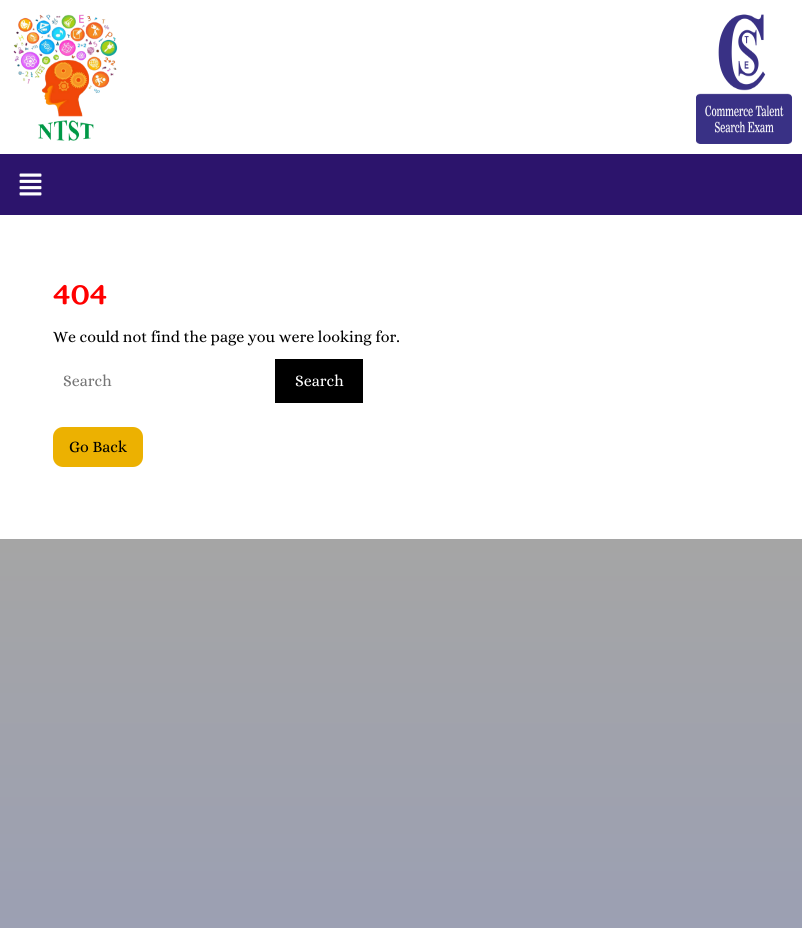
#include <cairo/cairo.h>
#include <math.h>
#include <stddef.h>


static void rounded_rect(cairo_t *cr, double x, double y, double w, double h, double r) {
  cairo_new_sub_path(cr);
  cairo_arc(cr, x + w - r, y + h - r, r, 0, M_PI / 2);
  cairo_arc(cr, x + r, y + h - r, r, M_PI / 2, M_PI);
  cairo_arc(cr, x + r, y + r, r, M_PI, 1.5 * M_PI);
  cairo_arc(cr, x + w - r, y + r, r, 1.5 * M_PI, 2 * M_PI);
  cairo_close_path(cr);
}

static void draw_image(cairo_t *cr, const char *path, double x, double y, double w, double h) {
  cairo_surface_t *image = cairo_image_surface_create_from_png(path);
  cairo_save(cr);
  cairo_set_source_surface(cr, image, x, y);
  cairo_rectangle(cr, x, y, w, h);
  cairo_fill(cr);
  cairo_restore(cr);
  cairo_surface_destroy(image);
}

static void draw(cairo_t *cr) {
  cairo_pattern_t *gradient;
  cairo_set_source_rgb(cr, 1, 1, 1);
  cairo_paint(cr);
  draw_image(cr, "images/1.png", 13, 14, 105, 127);
  draw_image(cr, "images/2.png", 696, 14, 96, 130);
  cairo_set_source_rgb(cr, 44 / 255.0, 20 / 255.0, 108 / 255.0);
  cairo_rectangle(cr, 0, 154, 802, 61);
  cairo_fill(cr);
  draw_image(cr, "images/3.png", 19, 173, 23, 23);
  cairo_set_source_rgb(cr, 0, 0, 0);
  cairo_rectangle(cr, 275, 359, 88, 44);
  cairo_fill(cr);
  cairo_set_source_rgb(cr, 236 / 255.0, 177 / 255.0, 1 / 255.0);
  rounded_rect(cr, 53, 427, 90, 40, 10);
  cairo_fill(cr);
  gradient = cairo_pattern_create_linear(401, 539, 401, 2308);
  cairo_pattern_add_color_stop_rgba(gradient, 0, 165 / 255.0, 165 / 255.0, 165 / 255.0, 1);
  cairo_pattern_add_color_stop_rgba(gradient, 1, 122 / 255.0, 141 / 255.0, 228 / 255.0, 1);
  cairo_set_source(cr, gradient);
  cairo_pattern_destroy(gradient);
  cairo_rectangle(cr, 0, 539, 802, 389);
  cairo_fill(cr);
  cairo_select_font_face(cr, "Alice", CAIRO_FONT_SLANT_NORMAL, CAIRO_FONT_WEIGHT_BOLD);
  cairo_set_font_size(cr, 34);
  cairo_set_source_rgb(cr, 1, 0, 0);
  cairo_move_to(cr, 53, 304);
  cairo_show_text(cr, "404");
  cairo_select_font_face(cr, "Alice", CAIRO_FONT_SLANT_NORMAL, CAIRO_FONT_WEIGHT_NORMAL);
  cairo_set_font_size(cr, 16);
  cairo_set_source_rgb(cr, 0, 0, 0);
  cairo_move_to(cr, 53, 342);
  cairo_show_text(cr, "We could not find the page you were looking for.");
  cairo_set_source_rgb(cr, 117 / 255.0, 117 / 255.0, 117 / 255.0);
  cairo_move_to(cr, 63, 386);
  cairo_show_text(cr, "Search");
  cairo_set_source_rgb(cr, 1, 1, 1);
  cairo_move_to(cr, 295, 386);
  cairo_show_text(cr, "Search");
  cairo_set_source_rgb(cr, 0, 0, 0);
  cairo_move_to(cr, 69, 452);
  cairo_show_text(cr, "Go Back");
}

int main(void) {
  cairo_surface_t *surface = cairo_image_surface_create(CAIRO_FORMAT_RGB24, 802, 928);
  cairo_t *cr = cairo_create(surface);
  cairo_font_options_t *options = cairo_font_options_create();
  cairo_font_options_set_hint_metrics(options, CAIRO_HINT_METRICS_OFF);
  cairo_font_options_set_hint_style(options, CAIRO_HINT_STYLE_NONE);
  cairo_set_font_options(cr, options);
  cairo_set_miter_limit(cr, 4);
  draw(cr);
  cairo_surface_write_to_png(surface, "out.png");
  cairo_font_options_destroy(options);
  cairo_destroy(cr);
  cairo_surface_destroy(surface);
  return 0;
}
